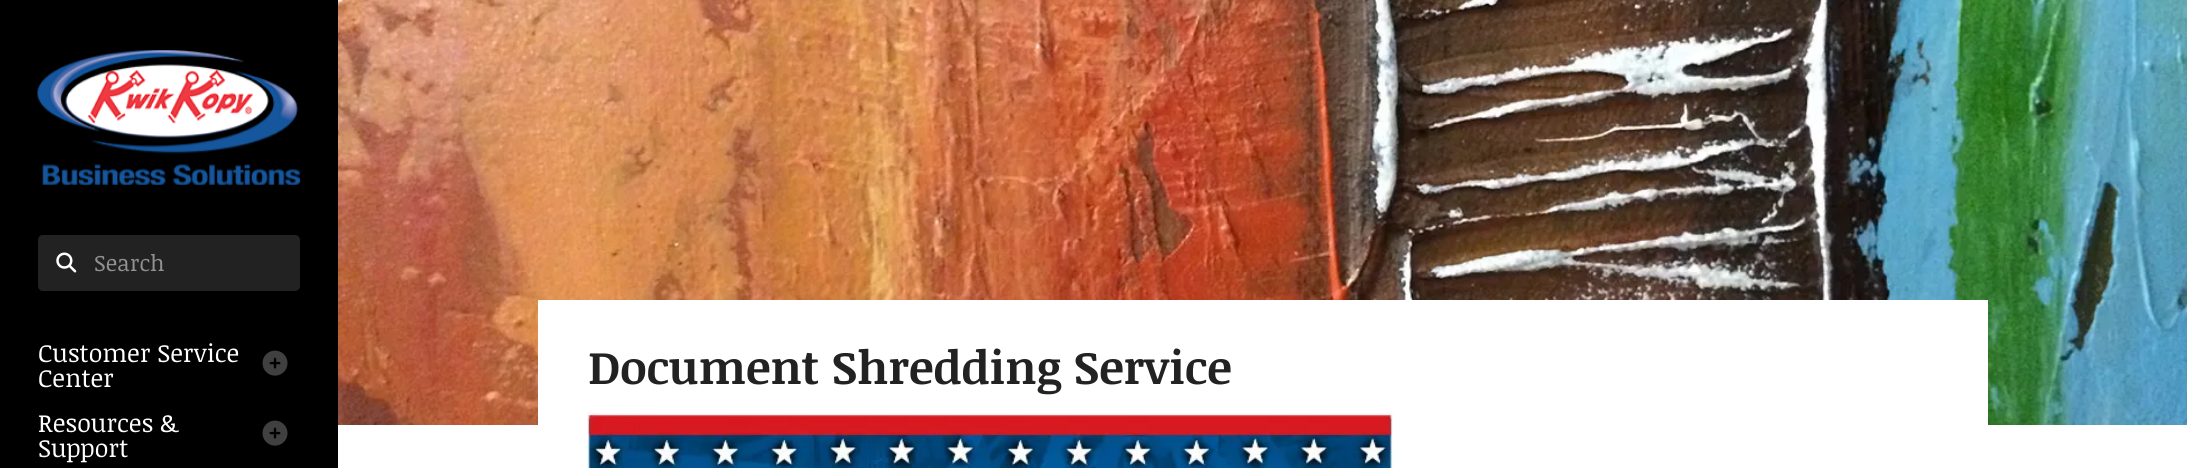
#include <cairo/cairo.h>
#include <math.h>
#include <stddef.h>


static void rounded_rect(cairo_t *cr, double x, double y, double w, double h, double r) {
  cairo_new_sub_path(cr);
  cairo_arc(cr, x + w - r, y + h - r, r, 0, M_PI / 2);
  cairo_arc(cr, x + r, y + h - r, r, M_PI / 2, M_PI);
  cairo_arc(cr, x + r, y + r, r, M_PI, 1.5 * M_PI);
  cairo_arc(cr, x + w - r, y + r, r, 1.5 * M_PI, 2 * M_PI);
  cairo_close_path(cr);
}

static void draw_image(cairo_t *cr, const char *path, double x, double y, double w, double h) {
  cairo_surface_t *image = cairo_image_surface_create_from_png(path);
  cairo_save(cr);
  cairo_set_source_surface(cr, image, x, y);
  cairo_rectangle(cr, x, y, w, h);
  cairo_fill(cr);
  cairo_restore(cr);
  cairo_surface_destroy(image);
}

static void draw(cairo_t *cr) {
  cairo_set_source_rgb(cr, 1, 1, 1);
  cairo_paint(cr);
  cairo_set_source_rgb(cr, 0, 0, 0);
  cairo_rectangle(cr, 0, 0, 338, 468);
  cairo_fill(cr);
  draw_image(cr, "images/1.png", 37, 50, 263, 135);
  cairo_set_source_rgb(cr, 34 / 255.0, 34 / 255.0, 34 / 255.0);
  rounded_rect(cr, 38, 235, 262, 56, 5);
  cairo_fill(cr);
  draw_image(cr, "images/2.png", 56, 252, 21, 21);
  draw_image(cr, "images/3.png", 262, 350, 26, 26);
  draw_image(cr, "images/3.png", 262, 420, 26, 26);
  draw_image(cr, "images/4.png", 338, 0, 1849, 425);
  cairo_set_source_rgb(cr, 1, 1, 1);
  cairo_rectangle(cr, 538, 300, 1450, 125);
  cairo_fill(cr);
  draw_image(cr, "images/5.png", 587, 412, 806, 56);
  cairo_select_font_face(cr, "Noticia Text", CAIRO_FONT_SLANT_NORMAL, CAIRO_FONT_WEIGHT_NORMAL);
  cairo_set_font_size(cr, 22.5);
  cairo_set_source_rgb(cr, 145 / 255.0, 145 / 255.0, 145 / 255.0);
  cairo_move_to(cr, 94, 271);
  cairo_show_text(cr, "Search");
  cairo_set_font_size(cr, 25);
  cairo_set_source_rgb(cr, 1, 1, 1);
  cairo_move_to(cr, 38, 362);
  cairo_show_text(cr, "Customer Service");
  cairo_move_to(cr, 38, 387);
  cairo_show_text(cr, "Center");
  cairo_move_to(cr, 38, 432);
  cairo_show_text(cr, "Resources &");
  cairo_move_to(cr, 38, 457);
  cairo_show_text(cr, "Support");
  cairo_select_font_face(cr, "Noticia Text", CAIRO_FONT_SLANT_NORMAL, CAIRO_FONT_WEIGHT_BOLD);
  cairo_set_font_size(cr, 46.25);
  cairo_set_source_rgb(cr, 34 / 255.0, 34 / 255.0, 34 / 255.0);
  cairo_move_to(cr, 588, 384);
  cairo_show_text(cr, "Document Shredding Service");
}

int main(void) {
  cairo_surface_t *surface = cairo_image_surface_create(CAIRO_FORMAT_RGB24, 2187, 468);
  cairo_t *cr = cairo_create(surface);
  cairo_font_options_t *options = cairo_font_options_create();
  cairo_font_options_set_hint_metrics(options, CAIRO_HINT_METRICS_OFF);
  cairo_font_options_set_hint_style(options, CAIRO_HINT_STYLE_NONE);
  cairo_set_font_options(cr, options);
  cairo_set_miter_limit(cr, 4);
  draw(cr);
  cairo_surface_write_to_png(surface, "out.png");
  cairo_font_options_destroy(options);
  cairo_destroy(cr);
  cairo_surface_destroy(surface);
  return 0;
}
